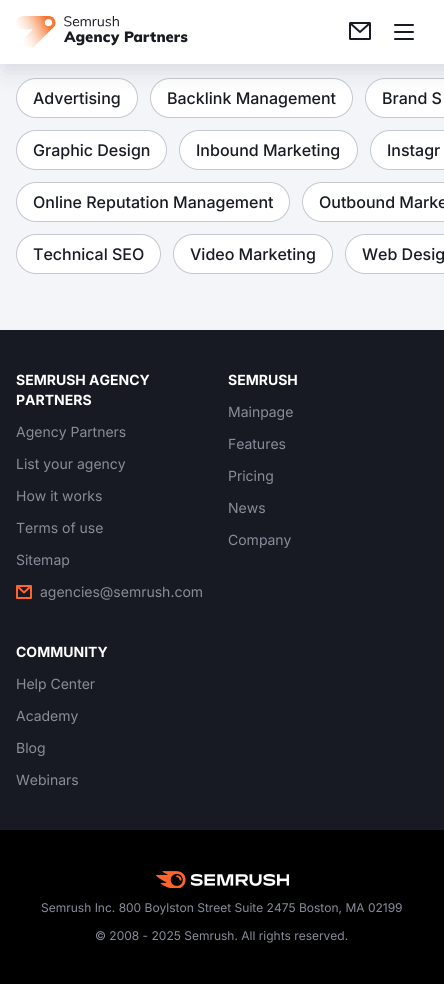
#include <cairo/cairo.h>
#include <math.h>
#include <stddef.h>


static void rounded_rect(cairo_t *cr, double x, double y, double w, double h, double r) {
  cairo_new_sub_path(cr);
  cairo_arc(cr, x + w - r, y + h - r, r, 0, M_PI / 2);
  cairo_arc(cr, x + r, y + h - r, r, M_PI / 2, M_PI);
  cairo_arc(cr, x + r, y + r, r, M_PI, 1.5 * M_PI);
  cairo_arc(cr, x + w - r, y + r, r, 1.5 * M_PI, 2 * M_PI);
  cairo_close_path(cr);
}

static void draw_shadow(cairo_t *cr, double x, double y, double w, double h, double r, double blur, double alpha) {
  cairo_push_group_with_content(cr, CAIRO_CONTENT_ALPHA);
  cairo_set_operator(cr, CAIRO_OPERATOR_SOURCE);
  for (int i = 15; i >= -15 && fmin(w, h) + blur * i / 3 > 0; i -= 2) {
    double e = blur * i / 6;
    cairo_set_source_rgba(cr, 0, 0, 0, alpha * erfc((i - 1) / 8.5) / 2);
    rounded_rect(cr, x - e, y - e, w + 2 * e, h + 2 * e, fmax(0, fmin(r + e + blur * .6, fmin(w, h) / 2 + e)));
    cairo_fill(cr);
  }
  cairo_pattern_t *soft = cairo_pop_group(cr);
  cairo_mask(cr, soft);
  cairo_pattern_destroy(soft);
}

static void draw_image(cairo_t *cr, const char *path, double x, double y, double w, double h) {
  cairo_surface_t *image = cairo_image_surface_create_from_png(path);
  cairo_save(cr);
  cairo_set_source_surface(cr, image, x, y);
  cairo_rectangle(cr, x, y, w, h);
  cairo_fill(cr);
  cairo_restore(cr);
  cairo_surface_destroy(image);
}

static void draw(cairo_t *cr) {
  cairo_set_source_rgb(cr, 244 / 255.0, 245 / 255.0, 249 / 255.0);
  cairo_paint(cr);
  cairo_set_source_rgb(cr, 1, 1, 1);
  rounded_rect(cr, 16.5, 78.5, 121, 39, 19.5);
  cairo_fill_preserve(cr);
  cairo_set_source_rgb(cr, 196 / 255.0, 199 / 255.0, 207 / 255.0);
  cairo_set_line_width(cr, 1);
  cairo_stroke(cr);
  cairo_set_source_rgb(cr, 1, 1, 1);
  rounded_rect(cr, 150.5, 78.5, 202, 39, 19.5);
  cairo_fill_preserve(cr);
  cairo_set_source_rgb(cr, 196 / 255.0, 199 / 255.0, 207 / 255.0);
  cairo_stroke(cr);
  cairo_set_source_rgb(cr, 1, 1, 1);
  cairo_new_path(cr);
  cairo_move_to(cr, 385, 78);
  cairo_line_to(cr, 444, 78);
  cairo_line_to(cr, 444, 118);
  cairo_line_to(cr, 385, 118);
  cairo_curve_to(cr, 374, 118, 365, 109, 365, 98);
  cairo_curve_to(cr, 365, 87, 374, 78, 385, 78);
  cairo_close_path(cr);
  cairo_fill(cr);
  rounded_rect(cr, 365.5, 78.5, 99, 39, 19.5);
  cairo_set_source_rgb(cr, 196 / 255.0, 199 / 255.0, 207 / 255.0);
  cairo_stroke(cr);
  cairo_set_source_rgb(cr, 137 / 255.0, 141 / 255.0, 154 / 255.0);
  draw_shadow(cr, 5, 5, 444, 64, 0, 12.5, 0.3);
  cairo_set_source_rgb(cr, 1, 1, 1);
  cairo_rectangle(cr, 0, 0, 444, 64);
  cairo_fill(cr);
  draw_image(cr, "images/1.png", 16, 16, 172, 32);
  draw_image(cr, "images/2.png", 349, 22, 22, 18);
  draw_image(cr, "images/3.png", 394, 24, 20, 16);
  rounded_rect(cr, 16.5, 130.5, 150, 39, 19.5);
  cairo_fill_preserve(cr);
  cairo_set_source_rgb(cr, 196 / 255.0, 199 / 255.0, 207 / 255.0);
  cairo_stroke(cr);
  cairo_set_source_rgb(cr, 1, 1, 1);
  rounded_rect(cr, 179.5, 130.5, 178, 39, 19.5);
  cairo_fill_preserve(cr);
  cairo_set_source_rgb(cr, 196 / 255.0, 199 / 255.0, 207 / 255.0);
  cairo_stroke(cr);
  cairo_set_source_rgb(cr, 1, 1, 1);
  cairo_new_path(cr);
  cairo_move_to(cr, 390, 130);
  cairo_line_to(cr, 444, 130);
  cairo_line_to(cr, 444, 170);
  cairo_line_to(cr, 390, 170);
  cairo_curve_to(cr, 379, 170, 370, 161, 370, 150);
  cairo_curve_to(cr, 370, 139, 379, 130, 390, 130);
  cairo_close_path(cr);
  cairo_fill(cr);
  rounded_rect(cr, 370.5, 130.5, 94, 39, 19.5);
  cairo_set_source_rgb(cr, 196 / 255.0, 199 / 255.0, 207 / 255.0);
  cairo_stroke(cr);
  cairo_set_source_rgb(cr, 1, 1, 1);
  rounded_rect(cr, 16.5, 182.5, 273, 39, 19.5);
  cairo_fill_preserve(cr);
  cairo_set_source_rgb(cr, 196 / 255.0, 199 / 255.0, 207 / 255.0);
  cairo_stroke(cr);
  cairo_set_source_rgb(cr, 1, 1, 1);
  cairo_new_path(cr);
  cairo_move_to(cr, 322, 182);
  cairo_line_to(cr, 444, 182);
  cairo_line_to(cr, 444, 222);
  cairo_line_to(cr, 322, 222);
  cairo_curve_to(cr, 311, 222, 302, 213, 302, 202);
  cairo_curve_to(cr, 302, 191, 311, 182, 322, 182);
  cairo_close_path(cr);
  cairo_fill(cr);
  rounded_rect(cr, 302.5, 182.5, 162, 39, 19.5);
  cairo_set_source_rgb(cr, 196 / 255.0, 199 / 255.0, 207 / 255.0);
  cairo_stroke(cr);
  cairo_set_source_rgb(cr, 1, 1, 1);
  rounded_rect(cr, 16.5, 234.5, 144, 39, 19.5);
  cairo_fill_preserve(cr);
  cairo_set_source_rgb(cr, 196 / 255.0, 199 / 255.0, 207 / 255.0);
  cairo_stroke(cr);
  cairo_set_source_rgb(cr, 1, 1, 1);
  rounded_rect(cr, 173.5, 234.5, 159, 39, 19.5);
  cairo_fill_preserve(cr);
  cairo_set_source_rgb(cr, 196 / 255.0, 199 / 255.0, 207 / 255.0);
  cairo_stroke(cr);
  cairo_set_source_rgb(cr, 1, 1, 1);
  cairo_new_path(cr);
  cairo_move_to(cr, 365, 234);
  cairo_line_to(cr, 444, 234);
  cairo_line_to(cr, 444, 274);
  cairo_line_to(cr, 365, 274);
  cairo_curve_to(cr, 354, 274, 345, 265, 345, 254);
  cairo_curve_to(cr, 345, 243, 354, 234, 365, 234);
  cairo_close_path(cr);
  cairo_fill(cr);
  rounded_rect(cr, 345.5, 234.5, 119, 39, 19.5);
  cairo_set_source_rgb(cr, 196 / 255.0, 199 / 255.0, 207 / 255.0);
  cairo_stroke(cr);
  cairo_set_source_rgb(cr, 23 / 255.0, 26 / 255.0, 34 / 255.0);
  cairo_rectangle(cr, 0, 330, 444, 500);
  cairo_fill(cr);
  draw_image(cr, "images/4.png", 16, 585, 16, 14);
  cairo_set_source_rgb(cr, 0, 0, 0);
  cairo_rectangle(cr, 0, 830, 444, 154);
  cairo_fill(cr);
  draw_image(cr, "images/5.png", 156, 871, 133, 17);
  cairo_select_font_face(cr, "Inter Medium", CAIRO_FONT_SLANT_NORMAL, CAIRO_FONT_WEIGHT_NORMAL);
  cairo_set_font_size(cr, 16);
  cairo_set_source_rgb(cr, 25 / 255.0, 27 / 255.0, 35 / 255.0);
  cairo_move_to(cr, 33, 104);
  cairo_show_text(cr, "Advertising");
  cairo_move_to(cr, 167, 104);
  cairo_show_text(cr, "Backlink Management");
  cairo_move_to(cr, 382, 104);
  cairo_show_text(cr, "Brand S");
  cairo_move_to(cr, 33, 156);
  cairo_show_text(cr, "Graphic Design");
  cairo_move_to(cr, 196, 156);
  cairo_show_text(cr, "Inbound Marketing");
  cairo_move_to(cr, 387, 156);
  cairo_show_text(cr, "Instagr");
  cairo_move_to(cr, 33, 208);
  cairo_show_text(cr, "Online Reputation Management");
  cairo_move_to(cr, 319, 208);
  cairo_show_text(cr, "Outbound Marke");
  cairo_move_to(cr, 33, 260);
  cairo_show_text(cr, "Technical SEO");
  cairo_move_to(cr, 190, 260);
  cairo_show_text(cr, "Video Marketing");
  cairo_move_to(cr, 362, 260);
  cairo_show_text(cr, "Web Desig");
  cairo_select_font_face(cr, "Inter", CAIRO_FONT_SLANT_NORMAL, CAIRO_FONT_WEIGHT_BOLD);
  cairo_set_font_size(cr, 14);
  cairo_set_source_rgb(cr, 1, 1, 1);
  cairo_move_to(cr, 16, 385);
  cairo_show_text(cr, "SEMRUSH AGENCY");
  cairo_move_to(cr, 16, 405);
  cairo_show_text(cr, "PARTNERS");
  cairo_select_font_face(cr, "Inter", CAIRO_FONT_SLANT_NORMAL, CAIRO_FONT_WEIGHT_NORMAL);
  cairo_set_source_rgb(cr, 137 / 255.0, 141 / 255.0, 154 / 255.0);
  cairo_move_to(cr, 16, 437);
  cairo_show_text(cr, "Agency Partners");
  cairo_move_to(cr, 16, 469);
  cairo_show_text(cr, "List your agency");
  cairo_move_to(cr, 16, 501);
  cairo_show_text(cr, "How it works");
  cairo_move_to(cr, 16, 533);
  cairo_show_text(cr, "Terms of use");
  cairo_move_to(cr, 16, 565);
  cairo_show_text(cr, "Sitemap");
  cairo_move_to(cr, 40, 597);
  cairo_show_text(cr, "agencies@semrush.com");
  cairo_select_font_face(cr, "Inter", CAIRO_FONT_SLANT_NORMAL, CAIRO_FONT_WEIGHT_BOLD);
  cairo_set_source_rgb(cr, 1, 1, 1);
  cairo_move_to(cr, 228, 385);
  cairo_show_text(cr, "SEMRUSH");
  cairo_select_font_face(cr, "Inter", CAIRO_FONT_SLANT_NORMAL, CAIRO_FONT_WEIGHT_NORMAL);
  cairo_set_source_rgb(cr, 137 / 255.0, 141 / 255.0, 154 / 255.0);
  cairo_move_to(cr, 228, 417);
  cairo_show_text(cr, "Mainpage");
  cairo_move_to(cr, 228, 449);
  cairo_show_text(cr, "Features");
  cairo_move_to(cr, 228, 481);
  cairo_show_text(cr, "Pricing");
  cairo_move_to(cr, 228, 513);
  cairo_show_text(cr, "News");
  cairo_move_to(cr, 228, 545);
  cairo_show_text(cr, "Company");
  cairo_select_font_face(cr, "Inter", CAIRO_FONT_SLANT_NORMAL, CAIRO_FONT_WEIGHT_BOLD);
  cairo_set_source_rgb(cr, 1, 1, 1);
  cairo_move_to(cr, 16, 657);
  cairo_show_text(cr, "COMMUNITY");
  cairo_select_font_face(cr, "Inter", CAIRO_FONT_SLANT_NORMAL, CAIRO_FONT_WEIGHT_NORMAL);
  cairo_set_source_rgb(cr, 137 / 255.0, 141 / 255.0, 154 / 255.0);
  cairo_move_to(cr, 16, 689);
  cairo_show_text(cr, "Help Center");
  cairo_move_to(cr, 16, 721);
  cairo_show_text(cr, "Academy");
  cairo_move_to(cr, 16, 753);
  cairo_show_text(cr, "Blog");
  cairo_move_to(cr, 16, 785);
  cairo_show_text(cr, "Webinars");
  cairo_set_font_size(cr, 12);
  cairo_move_to(cr, 41, 912);
  cairo_show_text(cr, "Semrush Inc. 800 Boylston Street Suite 2475 Boston, MA 02199");
  cairo_move_to(cr, 95, 940);
  cairo_show_text(cr, "© 2008 - 2025 Semrush. All rights reserved.");
}

int main(void) {
  cairo_surface_t *surface = cairo_image_surface_create(CAIRO_FORMAT_RGB24, 444, 984);
  cairo_t *cr = cairo_create(surface);
  cairo_font_options_t *options = cairo_font_options_create();
  cairo_font_options_set_hint_metrics(options, CAIRO_HINT_METRICS_OFF);
  cairo_font_options_set_hint_style(options, CAIRO_HINT_STYLE_NONE);
  cairo_set_font_options(cr, options);
  cairo_set_miter_limit(cr, 4);
  draw(cr);
  cairo_surface_write_to_png(surface, "out.png");
  cairo_font_options_destroy(options);
  cairo_destroy(cr);
  cairo_surface_destroy(surface);
  return 0;
}
